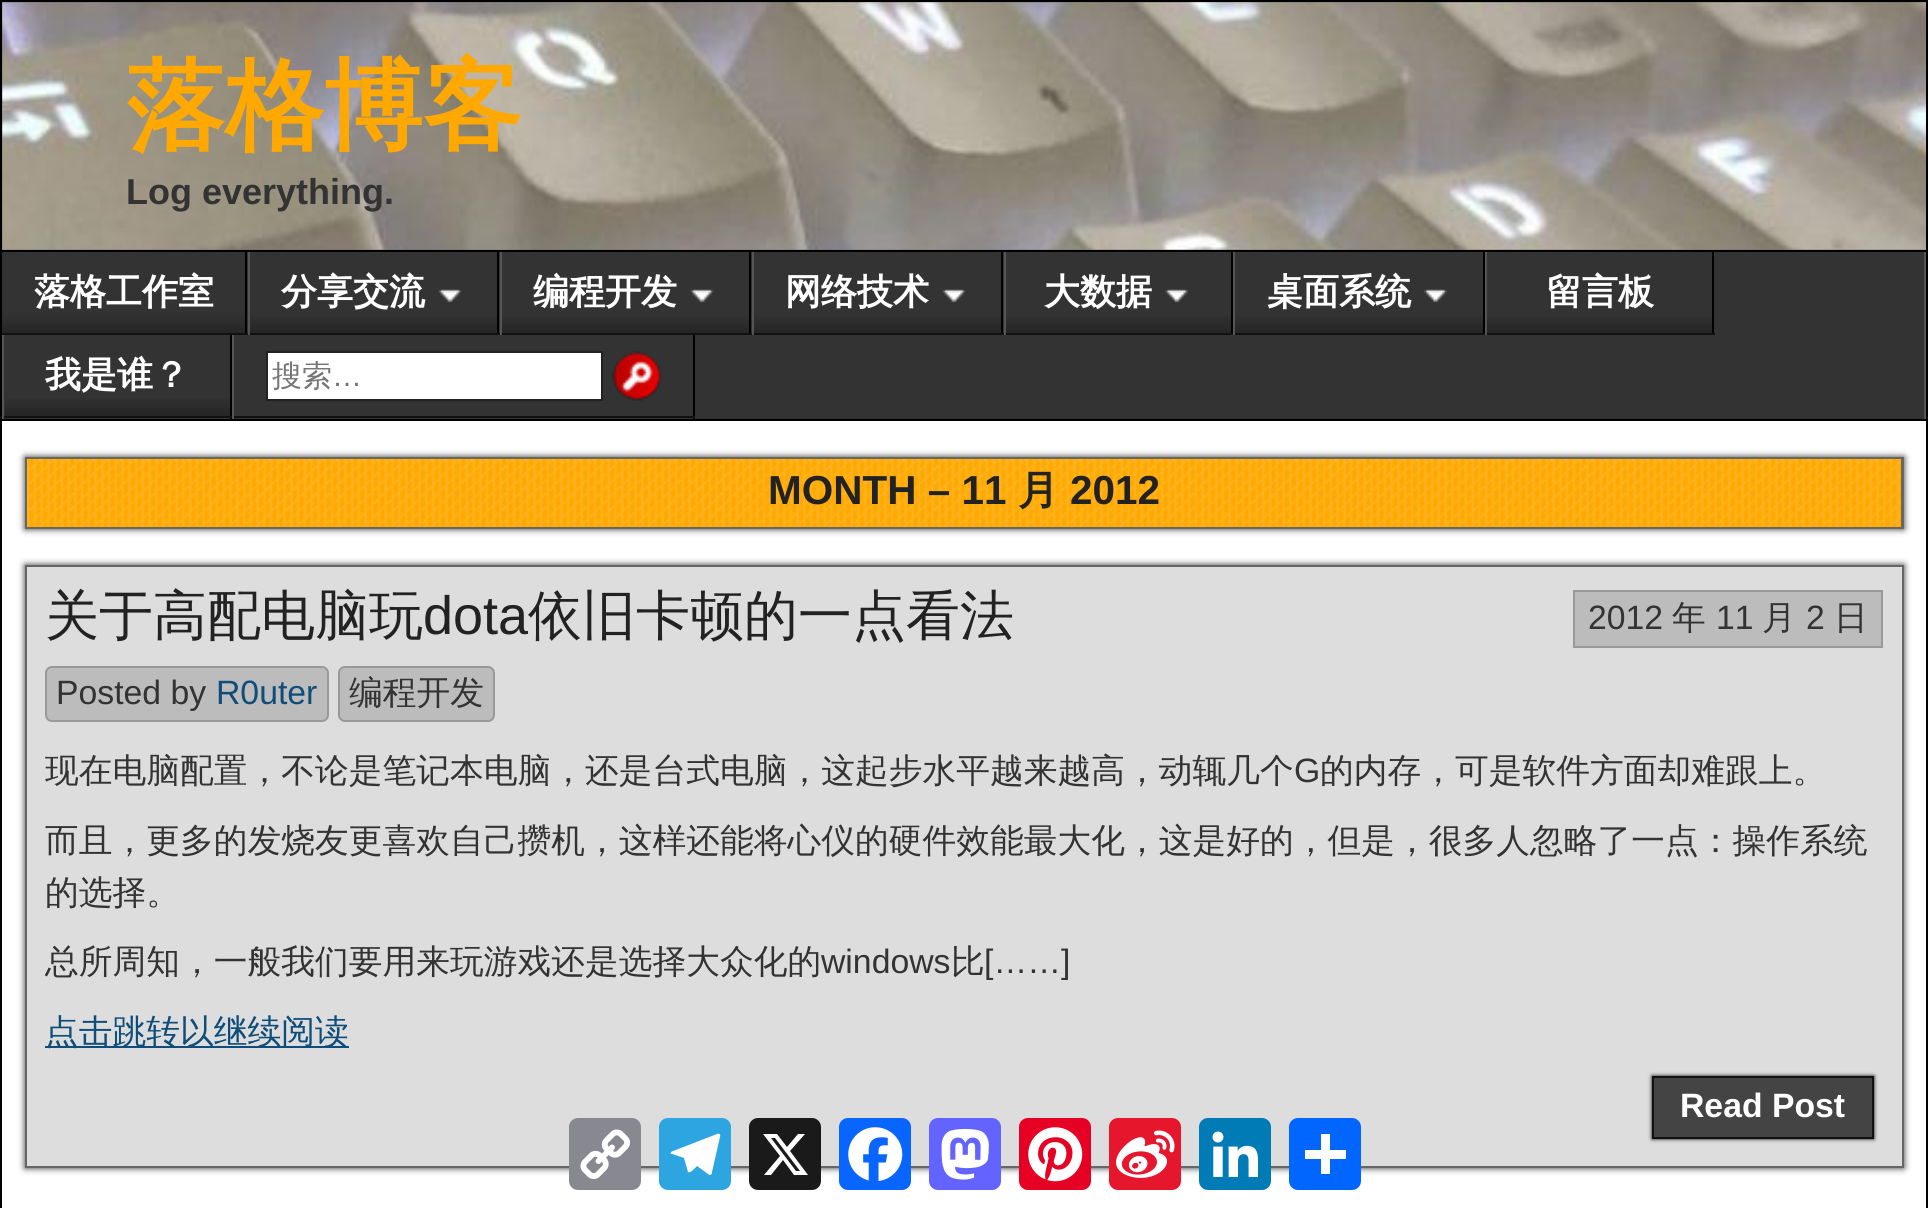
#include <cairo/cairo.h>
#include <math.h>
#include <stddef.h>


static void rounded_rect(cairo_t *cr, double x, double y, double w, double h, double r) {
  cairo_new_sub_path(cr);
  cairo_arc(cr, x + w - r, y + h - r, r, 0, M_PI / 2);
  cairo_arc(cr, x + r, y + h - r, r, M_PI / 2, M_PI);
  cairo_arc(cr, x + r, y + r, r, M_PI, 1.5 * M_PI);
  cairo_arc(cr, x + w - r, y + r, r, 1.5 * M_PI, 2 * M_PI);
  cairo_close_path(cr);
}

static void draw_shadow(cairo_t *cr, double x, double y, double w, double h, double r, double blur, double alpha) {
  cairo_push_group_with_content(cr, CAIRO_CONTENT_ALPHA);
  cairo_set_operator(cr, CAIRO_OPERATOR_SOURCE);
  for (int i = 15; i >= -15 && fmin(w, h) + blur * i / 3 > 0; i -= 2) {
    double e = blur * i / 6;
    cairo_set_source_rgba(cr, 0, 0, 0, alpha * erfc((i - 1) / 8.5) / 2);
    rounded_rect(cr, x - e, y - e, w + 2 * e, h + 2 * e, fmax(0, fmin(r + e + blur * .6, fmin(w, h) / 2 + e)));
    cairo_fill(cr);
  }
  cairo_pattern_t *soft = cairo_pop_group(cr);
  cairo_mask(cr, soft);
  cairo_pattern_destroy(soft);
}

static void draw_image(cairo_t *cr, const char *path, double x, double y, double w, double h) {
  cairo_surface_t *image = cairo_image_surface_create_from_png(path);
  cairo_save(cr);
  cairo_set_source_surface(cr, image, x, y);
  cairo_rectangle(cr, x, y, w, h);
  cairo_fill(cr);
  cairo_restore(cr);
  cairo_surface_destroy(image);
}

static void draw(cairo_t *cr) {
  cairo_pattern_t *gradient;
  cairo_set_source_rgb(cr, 1, 1, 1);
  cairo_paint(cr);
  cairo_rectangle(cr, 1, 1, 1926, 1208);
  cairo_set_source_rgb(cr, 0, 0, 0);
  cairo_stroke(cr);
  cairo_set_source_rgb(cr, 94 / 255.0, 94 / 255.0, 94 / 255.0);
  cairo_rectangle(cr, 2, 2, 1924, 248);
  cairo_fill(cr);
  draw_image(cr, "images/1.png", 2, 2, 1924, 248);
  cairo_set_source_rgb(cr, 51 / 255.0, 51 / 255.0, 51 / 255.0);
  cairo_rectangle(cr, 4, 252, 1920, 167);
  cairo_fill(cr);
  cairo_set_source_rgb(cr, 0, 0, 0);
  cairo_rectangle(cr, 2, 250, 1924, 2);
  cairo_fill(cr);
  cairo_rectangle(cr, 2, 419, 1924, 2);
  cairo_fill(cr);
  cairo_set_source_rgb(cr, 85 / 255.0, 85 / 255.0, 85 / 255.0);
  cairo_rectangle(cr, 1924, 252, 2, 167);
  cairo_fill(cr);
  cairo_set_source_rgb(cr, 0, 0, 0);
  cairo_rectangle(cr, 245, 252, 2, 83);
  cairo_fill(cr);
  cairo_set_source_rgb(cr, 17 / 255.0, 17 / 255.0, 17 / 255.0);
  cairo_rectangle(cr, 2, 333, 246, 2);
  cairo_fill(cr);
  gradient = cairo_pattern_create_linear(124, 252, 124, 333);
  cairo_pattern_add_color_stop_rgba(gradient, 0.75, 51 / 255.0, 51 / 255.0, 51 / 255.0, 1);
  cairo_pattern_add_color_stop_rgba(gradient, 1, 37 / 255.0, 37 / 255.0, 37 / 255.0, 1);
  cairo_set_source(cr, gradient);
  cairo_pattern_destroy(gradient);
  cairo_rectangle(cr, 2, 252, 243, 81);
  cairo_fill(cr);
  cairo_set_source_rgb(cr, 0, 0, 0);
  cairo_rectangle(cr, 497, 252, 2, 83);
  cairo_fill(cr);
  cairo_set_source_rgb(cr, 17 / 255.0, 17 / 255.0, 17 / 255.0);
  cairo_rectangle(cr, 248, 333, 252, 2);
  cairo_fill(cr);
  cairo_set_source_rgb(cr, 85 / 255.0, 85 / 255.0, 85 / 255.0);
  cairo_rectangle(cr, 248, 252, 2, 83);
  cairo_fill(cr);
  gradient = cairo_pattern_create_linear(374, 252, 374, 333);
  cairo_pattern_add_color_stop_rgba(gradient, 0.75, 51 / 255.0, 51 / 255.0, 51 / 255.0, 1);
  cairo_pattern_add_color_stop_rgba(gradient, 1, 37 / 255.0, 37 / 255.0, 37 / 255.0, 1);
  cairo_set_source(cr, gradient);
  cairo_pattern_destroy(gradient);
  cairo_rectangle(cr, 250, 316, 247, 17);
  cairo_fill(cr);
  draw_image(cr, "images/2.png", 438, 289, 24, 14);
  cairo_set_source_rgb(cr, 0, 0, 0);
  cairo_rectangle(cr, 749, 252, 2, 83);
  cairo_fill(cr);
  cairo_set_source_rgb(cr, 17 / 255.0, 17 / 255.0, 17 / 255.0);
  cairo_rectangle(cr, 500, 333, 252, 2);
  cairo_fill(cr);
  cairo_set_source_rgb(cr, 85 / 255.0, 85 / 255.0, 85 / 255.0);
  cairo_rectangle(cr, 500, 252, 2, 83);
  cairo_fill(cr);
  gradient = cairo_pattern_create_linear(626, 252, 626, 333);
  cairo_pattern_add_color_stop_rgba(gradient, 0.75, 51 / 255.0, 51 / 255.0, 51 / 255.0, 1);
  cairo_pattern_add_color_stop_rgba(gradient, 1, 37 / 255.0, 37 / 255.0, 37 / 255.0, 1);
  cairo_set_source(cr, gradient);
  cairo_pattern_destroy(gradient);
  cairo_rectangle(cr, 502, 316, 247, 17);
  cairo_fill(cr);
  draw_image(cr, "images/3.png", 690, 289, 24, 14);
  cairo_set_source_rgb(cr, 0, 0, 0);
  cairo_rectangle(cr, 1001, 252, 2, 83);
  cairo_fill(cr);
  cairo_set_source_rgb(cr, 17 / 255.0, 17 / 255.0, 17 / 255.0);
  cairo_rectangle(cr, 752, 333, 252, 2);
  cairo_fill(cr);
  cairo_set_source_rgb(cr, 85 / 255.0, 85 / 255.0, 85 / 255.0);
  cairo_rectangle(cr, 752, 252, 2, 83);
  cairo_fill(cr);
  gradient = cairo_pattern_create_linear(878, 252, 878, 333);
  cairo_pattern_add_color_stop_rgba(gradient, 0.75, 51 / 255.0, 51 / 255.0, 51 / 255.0, 1);
  cairo_pattern_add_color_stop_rgba(gradient, 1, 37 / 255.0, 37 / 255.0, 37 / 255.0, 1);
  cairo_set_source(cr, gradient);
  cairo_pattern_destroy(gradient);
  cairo_rectangle(cr, 754, 316, 247, 17);
  cairo_fill(cr);
  draw_image(cr, "images/2.png", 942, 289, 24, 14);
  cairo_set_source_rgb(cr, 0, 0, 0);
  cairo_rectangle(cr, 1231, 252, 2, 83);
  cairo_fill(cr);
  cairo_set_source_rgb(cr, 17 / 255.0, 17 / 255.0, 17 / 255.0);
  cairo_rectangle(cr, 1004, 333, 229, 2);
  cairo_fill(cr);
  cairo_set_source_rgb(cr, 85 / 255.0, 85 / 255.0, 85 / 255.0);
  cairo_rectangle(cr, 1004, 252, 2, 83);
  cairo_fill(cr);
  gradient = cairo_pattern_create_linear(1118, 252, 1118, 333);
  cairo_pattern_add_color_stop_rgba(gradient, 0.75, 51 / 255.0, 51 / 255.0, 51 / 255.0, 1);
  cairo_pattern_add_color_stop_rgba(gradient, 1, 37 / 255.0, 37 / 255.0, 37 / 255.0, 1);
  cairo_set_source(cr, gradient);
  cairo_pattern_destroy(gradient);
  cairo_rectangle(cr, 1006, 316, 225, 17);
  cairo_fill(cr);
  draw_image(cr, "images/4.png", 1165, 289, 23, 14);
  cairo_set_source_rgb(cr, 0, 0, 0);
  cairo_rectangle(cr, 1483, 252, 2, 83);
  cairo_fill(cr);
  cairo_set_source_rgb(cr, 17 / 255.0, 17 / 255.0, 17 / 255.0);
  cairo_rectangle(cr, 1233, 333, 252, 2);
  cairo_fill(cr);
  cairo_set_source_rgb(cr, 85 / 255.0, 85 / 255.0, 85 / 255.0);
  cairo_rectangle(cr, 1233, 252, 2, 83);
  cairo_fill(cr);
  gradient = cairo_pattern_create_linear(1359, 252, 1359, 333);
  cairo_pattern_add_color_stop_rgba(gradient, 0.75, 51 / 255.0, 51 / 255.0, 51 / 255.0, 1);
  cairo_pattern_add_color_stop_rgba(gradient, 1, 37 / 255.0, 37 / 255.0, 37 / 255.0, 1);
  cairo_set_source(cr, gradient);
  cairo_pattern_destroy(gradient);
  cairo_rectangle(cr, 1235, 316, 248, 17);
  cairo_fill(cr);
  draw_image(cr, "images/5.png", 1424, 289, 23, 14);
  cairo_set_source_rgb(cr, 0, 0, 0);
  cairo_rectangle(cr, 1712, 252, 2, 83);
  cairo_fill(cr);
  cairo_set_source_rgb(cr, 17 / 255.0, 17 / 255.0, 17 / 255.0);
  cairo_rectangle(cr, 1485, 333, 230, 2);
  cairo_fill(cr);
  cairo_set_source_rgb(cr, 85 / 255.0, 85 / 255.0, 85 / 255.0);
  cairo_rectangle(cr, 1485, 252, 2, 83);
  cairo_fill(cr);
  gradient = cairo_pattern_create_linear(1600, 252, 1600, 333);
  cairo_pattern_add_color_stop_rgba(gradient, 0.75, 51 / 255.0, 51 / 255.0, 51 / 255.0, 1);
  cairo_pattern_add_color_stop_rgba(gradient, 1, 37 / 255.0, 37 / 255.0, 37 / 255.0, 1);
  cairo_set_source(cr, gradient);
  cairo_pattern_destroy(gradient);
  cairo_rectangle(cr, 1487, 316, 225, 17);
  cairo_fill(cr);
  cairo_set_source_rgb(cr, 0, 0, 0);
  cairo_rectangle(cr, 230, 335, 2, 84);
  cairo_fill(cr);
  cairo_set_source_rgb(cr, 17 / 255.0, 17 / 255.0, 17 / 255.0);
  cairo_rectangle(cr, 2, 416, 230, 2);
  cairo_fill(cr);
  cairo_set_source_rgb(cr, 85 / 255.0, 85 / 255.0, 85 / 255.0);
  cairo_rectangle(cr, 2, 335, 2, 84);
  cairo_fill(cr);
  gradient = cairo_pattern_create_linear(117, 335, 117, 416);
  cairo_pattern_add_color_stop_rgba(gradient, 0.75, 51 / 255.0, 51 / 255.0, 51 / 255.0, 1);
  cairo_pattern_add_color_stop_rgba(gradient, 1, 37 / 255.0, 37 / 255.0, 37 / 255.0, 1);
  cairo_set_source(cr, gradient);
  cairo_pattern_destroy(gradient);
  cairo_rectangle(cr, 5, 399, 225, 17);
  cairo_fill(cr);
  cairo_set_source_rgb(cr, 0, 0, 0);
  cairo_rectangle(cr, 693, 335, 2, 84);
  cairo_fill(cr);
  cairo_set_source_rgb(cr, 17 / 255.0, 17 / 255.0, 17 / 255.0);
  cairo_rectangle(cr, 232, 416, 463, 2);
  cairo_fill(cr);
  cairo_set_source_rgb(cr, 85 / 255.0, 85 / 255.0, 85 / 255.0);
  cairo_rectangle(cr, 232, 335, 2, 84);
  cairo_fill(cr);
  cairo_set_source_rgb(cr, 1, 1, 1);
  cairo_rectangle(cr, 267, 352, 335, 48);
  cairo_fill_preserve(cr);
  cairo_set_source_rgb(cr, 34 / 255.0, 34 / 255.0, 34 / 255.0);
  cairo_stroke(cr);
  draw_image(cr, "images/6.png", 612, 351, 50, 50);
  cairo_set_source_rgb(cr, 51 / 255.0, 51 / 255.0, 51 / 255.0);
  draw_shadow(cr, 25, 457, 1879, 72, 0, 3.5, 1);
  cairo_rectangle(cr, 26, 458, 1877, 70);
  cairo_set_source_rgb(cr, 102 / 255.0, 102 / 255.0, 102 / 255.0);
  cairo_stroke(cr);
  cairo_set_source_rgb(cr, 1, 169 / 255.0, 0);
  cairo_rectangle(cr, 27, 459, 1874, 68);
  cairo_fill(cr);
  draw_image(cr, "images/7.png", 27, 459, 1874, 68);
  cairo_set_source_rgb(cr, 51 / 255.0, 51 / 255.0, 51 / 255.0);
  draw_shadow(cr, 25, 565, 1879, 603, 0, 3.5, 1);
  cairo_set_source_rgb(cr, 221 / 255.0, 221 / 255.0, 221 / 255.0);
  cairo_rectangle(cr, 26, 566, 1877, 601);
  cairo_fill_preserve(cr);
  cairo_set_source_rgb(cr, 102 / 255.0, 102 / 255.0, 102 / 255.0);
  cairo_stroke(cr);
  cairo_set_source_rgb(cr, 188 / 255.0, 188 / 255.0, 188 / 255.0);
  cairo_rectangle(cr, 1574, 591, 308, 56);
  cairo_fill_preserve(cr);
  cairo_set_source_rgb(cr, 153 / 255.0, 153 / 255.0, 153 / 255.0);
  cairo_stroke(cr);
  cairo_set_source_rgb(cr, 188 / 255.0, 188 / 255.0, 188 / 255.0);
  rounded_rect(cr, 46, 667, 282, 54, 6);
  cairo_fill_preserve(cr);
  cairo_set_source_rgb(cr, 153 / 255.0, 153 / 255.0, 153 / 255.0);
  cairo_stroke(cr);
  cairo_set_source_rgb(cr, 188 / 255.0, 188 / 255.0, 188 / 255.0);
  rounded_rect(cr, 339, 667, 155, 54, 6);
  cairo_fill_preserve(cr);
  cairo_set_source_rgb(cr, 153 / 255.0, 153 / 255.0, 153 / 255.0);
  cairo_stroke(cr);
  cairo_set_source_rgb(cr, 14 / 255.0, 77 / 255.0, 122 / 255.0);
  cairo_rectangle(cr, 45, 1046, 304, 2);
  cairo_fill(cr);
  cairo_set_source_rgb(cr, 0, 0, 0);
  draw_shadow(cr, 1652, 1076, 222, 63, 0, 2, 1);
  cairo_set_source_rgb(cr, 68 / 255.0, 68 / 255.0, 68 / 255.0);
  cairo_rectangle(cr, 1653, 1077, 220, 61);
  cairo_fill_preserve(cr);
  cairo_set_source_rgb(cr, 17 / 255.0, 17 / 255.0, 17 / 255.0);
  cairo_stroke(cr);
  cairo_set_source_rgb(cr, 136 / 255.0, 137 / 255.0, 144 / 255.0);
  rounded_rect(cr, 569, 1118, 72, 72, 9);
  cairo_fill(cr);
  draw_image(cr, "images/8.png", 580, 1129, 50, 50);
  cairo_set_source_rgb(cr, 44 / 255.0, 165 / 255.0, 224 / 255.0);
  rounded_rect(cr, 659, 1118, 72, 72, 9);
  cairo_fill(cr);
  cairo_set_source_rgb(cr, 1, 1, 1);
  cairo_new_path(cr);
  cairo_move_to(cr, 717, 1134);
  cairo_line_to(cr, 673, 1151);
  cairo_curve_to(cr, 670, 1152, 670, 1154, 672, 1154);
  cairo_line_to(cr, 684, 1158);
  cairo_line_to(cr, 688, 1172);
  cairo_curve_to(cr, 690, 1174, 696, 1167, 697, 1166);
  cairo_line_to(cr, 708, 1174);
  cairo_curve_to(cr, 710, 1176, 712, 1175, 712, 1172);
  cairo_line_to(cr, 720, 1137);
  cairo_curve_to(cr, 721, 1134, 719, 1133, 717, 1134);
  cairo_close_path(cr);
  cairo_fill(cr);
  cairo_set_source_rgb(cr, 26 / 255.0, 26 / 255.0, 26 / 255.0);
  rounded_rect(cr, 749, 1118, 72, 72, 9);
  cairo_fill(cr);
  cairo_set_source_rgb(cr, 1, 1, 1);
  cairo_new_path(cr);
  cairo_move_to(cr, 798, 1134);
  cairo_line_to(cr, 805, 1134);
  cairo_line_to(cr, 790, 1151);
  cairo_line_to(cr, 808, 1175);
  cairo_line_to(cr, 794, 1175);
  cairo_line_to(cr, 783, 1160);
  cairo_line_to(cr, 771, 1175);
  cairo_line_to(cr, 764, 1175);
  cairo_line_to(cr, 780, 1156);
  cairo_line_to(cr, 763, 1134);
  cairo_line_to(cr, 777, 1134);
  cairo_line_to(cr, 787, 1147);
  cairo_close_path(cr);
  cairo_move_to(cr, 796, 1171);
  cairo_line_to(cr, 800, 1171);
  cairo_line_to(cr, 775, 1138);
  cairo_line_to(cr, 771, 1138);
  cairo_close_path(cr);
  cairo_fill(cr);
  cairo_set_source_rgb(cr, 8 / 255.0, 102 / 255.0, 1);
  rounded_rect(cr, 839, 1118, 72, 72, 9);
  cairo_fill(cr);
  draw_image(cr, "images/9.png", 848, 1127, 55, 54);
  cairo_set_source_rgb(cr, 99 / 255.0, 100 / 255.0, 1);
  rounded_rect(cr, 929, 1118, 72, 72, 9);
  cairo_fill(cr);
  draw_image(cr, "images/10.png", 941, 1128, 48, 52);
  cairo_set_source_rgb(cr, 230 / 255.0, 0, 35 / 255.0);
  rounded_rect(cr, 1019, 1118, 72, 72, 9);
  cairo_fill(cr);
  draw_image(cr, "images/11.png", 1028, 1127, 55, 55);
  cairo_set_source_rgb(cr, 230 / 255.0, 22 / 255.0, 45 / 255.0);
  rounded_rect(cr, 1109, 1118, 72, 72, 9);
  cairo_fill(cr);
  draw_image(cr, "images/12.png", 1116, 1130, 59, 48);
  cairo_set_source_rgb(cr, 0, 123 / 255.0, 181 / 255.0);
  rounded_rect(cr, 1199, 1118, 72, 72, 9);
  cairo_fill(cr);
  draw_image(cr, "images/13.png", 1212, 1131, 46, 46);
  cairo_set_source_rgb(cr, 1 / 255.0, 102 / 255.0, 1);
  rounded_rect(cr, 1289, 1118, 72, 72, 9);
  cairo_fill(cr);
  cairo_set_source_rgb(cr, 1, 1, 1);
  cairo_rectangle(cr, 1321, 1134, 9, 40);
  cairo_fill(cr);
  cairo_rectangle(cr, 1305, 1150, 41, 9);
  cairo_fill(cr);
  cairo_select_font_face(cr, "WenQuanYi Zen Hei", CAIRO_FONT_SLANT_NORMAL, CAIRO_FONT_WEIGHT_BOLD);
  cairo_set_font_size(cr, 99);
  cairo_set_source_rgb(cr, 1, 169 / 255.0, 0);
  cairo_move_to(cr, 126, 140);
  cairo_show_text(cr, "落格博客");
  cairo_select_font_face(cr, "Liberation Sans", CAIRO_FONT_SLANT_NORMAL, CAIRO_FONT_WEIGHT_BOLD);
  cairo_set_font_size(cr, 36);
  cairo_set_source_rgb(cr, 51 / 255.0, 51 / 255.0, 51 / 255.0);
  cairo_move_to(cr, 126, 204);
  cairo_show_text(cr, "Log everything.");
  cairo_select_font_face(cr, "WenQuanYi Zen Hei", CAIRO_FONT_SLANT_NORMAL, CAIRO_FONT_WEIGHT_BOLD);
  cairo_set_source_rgb(cr, 1, 1, 1);
  cairo_move_to(cr, 34, 304);
  cairo_show_text(cr, "落格工作室");
  cairo_move_to(cr, 281, 304);
  cairo_show_text(cr, "分享交流");
  cairo_move_to(cr, 533, 304);
  cairo_show_text(cr, "编程开发");
  cairo_move_to(cr, 785, 304);
  cairo_show_text(cr, "网络技术");
  cairo_move_to(cr, 1044, 304);
  cairo_show_text(cr, "大数据");
  cairo_move_to(cr, 1267, 304);
  cairo_show_text(cr, "桌面系统");
  cairo_move_to(cr, 1546, 304);
  cairo_show_text(cr, "留言板");
  cairo_move_to(cr, 45, 387);
  cairo_show_text(cr, "我是谁？");
  cairo_select_font_face(cr, "WenQuanYi Zen Hei Medium", CAIRO_FONT_SLANT_NORMAL, CAIRO_FONT_WEIGHT_NORMAL);
  cairo_set_font_size(cr, 30);
  cairo_set_source_rgb(cr, 117 / 255.0, 117 / 255.0, 117 / 255.0);
  cairo_move_to(cr, 272, 386);
  cairo_show_text(cr, "搜索");
  cairo_select_font_face(cr, "Liberation Sans", CAIRO_FONT_SLANT_NORMAL, CAIRO_FONT_WEIGHT_NORMAL);
  cairo_move_to(cr, 332, 386);
  cairo_show_text(cr, "…");
  cairo_select_font_face(cr, "Liberation Sans", CAIRO_FONT_SLANT_NORMAL, CAIRO_FONT_WEIGHT_BOLD);
  cairo_set_font_size(cr, 40.5);
  cairo_set_source_rgb(cr, 34 / 255.0, 34 / 255.0, 34 / 255.0);
  cairo_move_to(cr, 768, 504);
  cairo_show_text(cr, "MONTH – 11");
  cairo_select_font_face(cr, "WenQuanYi Zen Hei", CAIRO_FONT_SLANT_NORMAL, CAIRO_FONT_WEIGHT_BOLD);
  cairo_move_to(cr, 1018, 504);
  cairo_show_text(cr, "月");
  cairo_select_font_face(cr, "Liberation Sans", CAIRO_FONT_SLANT_NORMAL, CAIRO_FONT_WEIGHT_BOLD);
  cairo_move_to(cr, 1070, 504);
  cairo_show_text(cr, "2012");
  cairo_select_font_face(cr, "WenQuanYi Zen Hei Medium", CAIRO_FONT_SLANT_NORMAL, CAIRO_FONT_WEIGHT_NORMAL);
  cairo_set_font_size(cr, 54);
  cairo_move_to(cr, 45, 634);
  cairo_show_text(cr, "关于高配电脑玩");
  cairo_select_font_face(cr, "Liberation Sans", CAIRO_FONT_SLANT_NORMAL, CAIRO_FONT_WEIGHT_NORMAL);
  cairo_move_to(cr, 423, 634);
  cairo_show_text(cr, "dota");
  cairo_select_font_face(cr, "WenQuanYi Zen Hei Medium", CAIRO_FONT_SLANT_NORMAL, CAIRO_FONT_WEIGHT_NORMAL);
  cairo_move_to(cr, 528, 634);
  cairo_show_text(cr, "依旧卡顿的一点看法");
  cairo_select_font_face(cr, "Liberation Sans", CAIRO_FONT_SLANT_NORMAL, CAIRO_FONT_WEIGHT_NORMAL);
  cairo_set_font_size(cr, 33.75);
  cairo_set_source_rgb(cr, 51 / 255.0, 51 / 255.0, 51 / 255.0);
  cairo_move_to(cr, 1588, 629);
  cairo_show_text(cr, "2012");
  cairo_select_font_face(cr, "WenQuanYi Zen Hei Medium", CAIRO_FONT_SLANT_NORMAL, CAIRO_FONT_WEIGHT_NORMAL);
  cairo_move_to(cr, 1672, 629);
  cairo_show_text(cr, "年");
  cairo_select_font_face(cr, "Liberation Sans", CAIRO_FONT_SLANT_NORMAL, CAIRO_FONT_WEIGHT_NORMAL);
  cairo_move_to(cr, 1716, 629);
  cairo_show_text(cr, "11");
  cairo_select_font_face(cr, "WenQuanYi Zen Hei Medium", CAIRO_FONT_SLANT_NORMAL, CAIRO_FONT_WEIGHT_NORMAL);
  cairo_move_to(cr, 1762, 629);
  cairo_show_text(cr, "月");
  cairo_select_font_face(cr, "Liberation Sans", CAIRO_FONT_SLANT_NORMAL, CAIRO_FONT_WEIGHT_NORMAL);
  cairo_move_to(cr, 1806, 629);
  cairo_show_text(cr, "2");
  cairo_select_font_face(cr, "WenQuanYi Zen Hei Medium", CAIRO_FONT_SLANT_NORMAL, CAIRO_FONT_WEIGHT_NORMAL);
  cairo_move_to(cr, 1834, 629);
  cairo_show_text(cr, "日");
  cairo_select_font_face(cr, "Liberation Sans", CAIRO_FONT_SLANT_NORMAL, CAIRO_FONT_WEIGHT_NORMAL);
  cairo_move_to(cr, 56, 704);
  cairo_show_text(cr, "Posted by");
  cairo_set_source_rgb(cr, 14 / 255.0, 77 / 255.0, 122 / 255.0);
  cairo_move_to(cr, 216, 704);
  cairo_show_text(cr, "R0uter");
  cairo_select_font_face(cr, "WenQuanYi Zen Hei Medium", CAIRO_FONT_SLANT_NORMAL, CAIRO_FONT_WEIGHT_NORMAL);
  cairo_set_source_rgb(cr, 51 / 255.0, 51 / 255.0, 51 / 255.0);
  cairo_move_to(cr, 349, 704);
  cairo_show_text(cr, "编程开发");
  cairo_move_to(cr, 45, 782);
  cairo_show_text(cr, "现在电脑配置，不论是笔记本电脑，还是台式电脑，这起步水平越来越高，动辄几个");
  cairo_select_font_face(cr, "Liberation Sans", CAIRO_FONT_SLANT_NORMAL, CAIRO_FONT_WEIGHT_NORMAL);
  cairo_move_to(cr, 1294, 782);
  cairo_show_text(cr, "G");
  cairo_select_font_face(cr, "WenQuanYi Zen Hei Medium", CAIRO_FONT_SLANT_NORMAL, CAIRO_FONT_WEIGHT_NORMAL);
  cairo_move_to(cr, 1320, 782);
  cairo_show_text(cr, "的内存，可是软件方面却难跟上。");
  cairo_move_to(cr, 45, 852);
  cairo_show_text(cr, "而且，更多的发烧友更喜欢自己攒机，这样还能将心仪的硬件效能最大化，这是好的，但是，很多人忽略了一点：操作系统");
  cairo_move_to(cr, 45, 904);
  cairo_show_text(cr, "的选择。");
  cairo_move_to(cr, 45, 973);
  cairo_show_text(cr, "总所周知，一般我们要用来玩游戏还是选择大众化的");
  cairo_select_font_face(cr, "Liberation Sans", CAIRO_FONT_SLANT_NORMAL, CAIRO_FONT_WEIGHT_NORMAL);
  cairo_move_to(cr, 821, 973);
  cairo_show_text(cr, "windows");
  cairo_select_font_face(cr, "WenQuanYi Zen Hei Medium", CAIRO_FONT_SLANT_NORMAL, CAIRO_FONT_WEIGHT_NORMAL);
  cairo_move_to(cr, 951, 973);
  cairo_show_text(cr, "比");
  cairo_select_font_face(cr, "Liberation Sans", CAIRO_FONT_SLANT_NORMAL, CAIRO_FONT_WEIGHT_NORMAL);
  cairo_move_to(cr, 984, 973);
  cairo_show_text(cr, "[……]");
  cairo_select_font_face(cr, "WenQuanYi Zen Hei Medium", CAIRO_FONT_SLANT_NORMAL, CAIRO_FONT_WEIGHT_NORMAL);
  cairo_set_source_rgb(cr, 14 / 255.0, 77 / 255.0, 122 / 255.0);
  cairo_move_to(cr, 45, 1043);
  cairo_show_text(cr, "点击跳转以继续阅读");
  cairo_select_font_face(cr, "Liberation Sans", CAIRO_FONT_SLANT_NORMAL, CAIRO_FONT_WEIGHT_BOLD);
  cairo_set_source_rgb(cr, 1, 1, 1);
  cairo_move_to(cr, 1680, 1117);
  cairo_show_text(cr, "Read Post");
}

int main(void) {
  cairo_surface_t *surface = cairo_image_surface_create(CAIRO_FORMAT_RGB24, 1928, 1208);
  cairo_t *cr = cairo_create(surface);
  cairo_font_options_t *options = cairo_font_options_create();
  cairo_font_options_set_hint_metrics(options, CAIRO_HINT_METRICS_OFF);
  cairo_font_options_set_hint_style(options, CAIRO_HINT_STYLE_NONE);
  cairo_set_font_options(cr, options);
  cairo_set_miter_limit(cr, 4);
  draw(cr);
  cairo_surface_write_to_png(surface, "out.png");
  cairo_font_options_destroy(options);
  cairo_destroy(cr);
  cairo_surface_destroy(surface);
  return 0;
}
